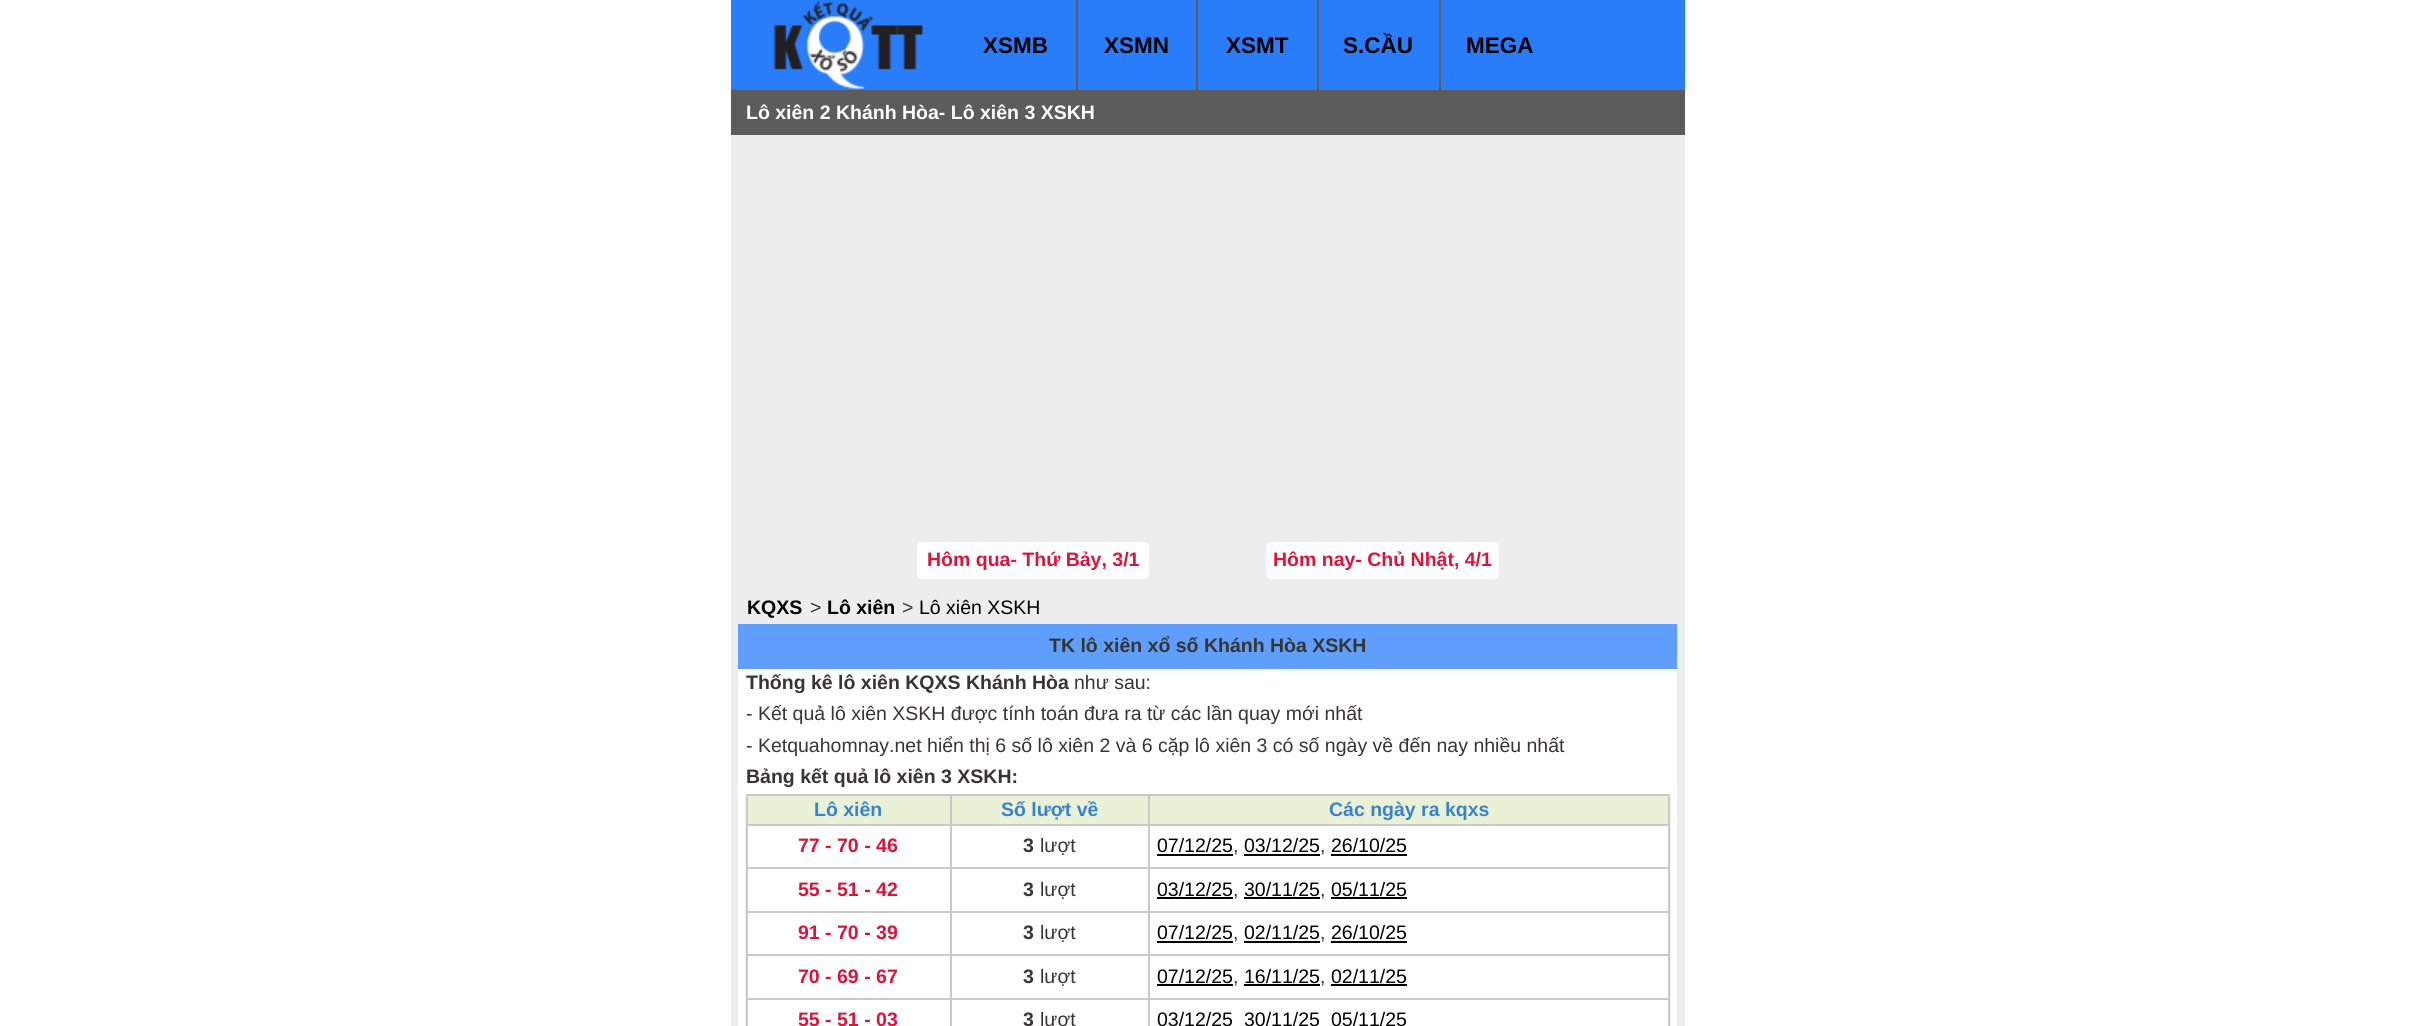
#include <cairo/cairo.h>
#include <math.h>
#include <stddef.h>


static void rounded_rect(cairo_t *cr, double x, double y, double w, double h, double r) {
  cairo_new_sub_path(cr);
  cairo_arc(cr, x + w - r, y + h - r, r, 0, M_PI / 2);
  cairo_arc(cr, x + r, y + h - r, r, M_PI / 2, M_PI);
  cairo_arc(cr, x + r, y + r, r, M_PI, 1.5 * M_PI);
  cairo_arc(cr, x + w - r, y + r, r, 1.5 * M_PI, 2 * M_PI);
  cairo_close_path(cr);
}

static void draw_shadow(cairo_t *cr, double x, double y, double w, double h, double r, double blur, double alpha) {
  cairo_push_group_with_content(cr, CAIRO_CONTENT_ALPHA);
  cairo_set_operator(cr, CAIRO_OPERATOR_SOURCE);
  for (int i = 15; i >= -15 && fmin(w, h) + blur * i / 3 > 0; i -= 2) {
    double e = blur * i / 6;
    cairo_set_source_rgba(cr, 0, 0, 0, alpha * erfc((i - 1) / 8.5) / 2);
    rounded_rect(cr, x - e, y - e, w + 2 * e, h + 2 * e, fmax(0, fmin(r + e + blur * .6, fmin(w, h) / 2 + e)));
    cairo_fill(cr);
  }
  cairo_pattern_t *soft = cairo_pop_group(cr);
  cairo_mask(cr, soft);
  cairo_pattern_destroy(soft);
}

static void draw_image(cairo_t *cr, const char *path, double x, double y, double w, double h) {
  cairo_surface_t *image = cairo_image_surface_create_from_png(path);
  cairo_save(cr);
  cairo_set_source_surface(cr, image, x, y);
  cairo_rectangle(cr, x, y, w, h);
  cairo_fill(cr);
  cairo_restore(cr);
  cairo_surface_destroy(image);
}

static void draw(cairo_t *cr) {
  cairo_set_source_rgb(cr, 1, 1, 1);
  cairo_paint(cr);
  cairo_set_source_rgb(cr, 42 / 255.0, 125 / 255.0, 250 / 255.0);
  cairo_rectangle(cr, 731, 0, 954, 90);
  cairo_fill(cr);
  draw_image(cr, "images/1.png", 773, 1, 150, 88);
  cairo_set_source_rgb(cr, 92 / 255.0, 92 / 255.0, 92 / 255.0);
  cairo_rectangle(cr, 1076, 0, 2, 90);
  cairo_fill(cr);
  cairo_rectangle(cr, 1196, 0, 2, 90);
  cairo_fill(cr);
  cairo_rectangle(cr, 1317, 0, 2, 90);
  cairo_fill(cr);
  cairo_rectangle(cr, 1439, 0, 2, 90);
  cairo_fill(cr);
  cairo_rectangle(cr, 731, 90, 954, 45);
  cairo_fill(cr);
  cairo_set_source_rgb(cr, 237 / 255.0, 237 / 255.0, 237 / 255.0);
  cairo_rectangle(cr, 731, 135, 954, 891);
  cairo_fill(cr);
  cairo_set_source_rgb(cr, 1, 1, 1);
  rounded_rect(cr, 917, 542, 232, 37, 5);
  cairo_fill(cr);
  rounded_rect(cr, 1266, 542, 233, 37, 5);
  cairo_fill(cr);
  cairo_set_source_rgb(cr, 95 / 255.0, 158 / 255.0, 252 / 255.0);
  cairo_rectangle(cr, 738, 624, 939, 45);
  cairo_fill(cr);
  cairo_set_source_rgb(cr, 1, 1, 1);
  cairo_rectangle(cr, 738, 669, 939, 357);
  cairo_fill(cr);
  cairo_save(cr);
  cairo_set_fill_rule(cr, CAIRO_FILL_RULE_EVEN_ODD);
  cairo_new_path(cr);
  cairo_move_to(cr, 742, 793);
  cairo_line_to(cr, 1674, 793);
  cairo_line_to(cr, 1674, 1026);
  cairo_line_to(cr, 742, 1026);
  cairo_close_path(cr);
  cairo_move_to(cr, 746, 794);
  cairo_line_to(cr, 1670, 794);
  cairo_line_to(cr, 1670, 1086);
  cairo_line_to(cr, 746, 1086);
  cairo_close_path(cr);
  cairo_clip(cr);
  cairo_set_source_rgb(cr, 210 / 255.0, 210 / 255.0, 210 / 255.0);
  draw_shadow(cr, 746, 797, 924, 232, 0, 1, 1);
  cairo_restore(cr);
  cairo_set_source_rgb(cr, 234 / 255.0, 241 / 255.0, 215 / 255.0);
  cairo_rectangle(cr, 748, 796, 202, 28);
  cairo_fill(cr);
  cairo_set_source_rgb(cr, 201 / 255.0, 201 / 255.0, 201 / 255.0);
  cairo_rectangle(cr, 1148, 794, 522, 2);
  cairo_fill(cr);
  cairo_rectangle(cr, 1148, 824, 522, 2);
  cairo_fill(cr);
  cairo_rectangle(cr, 1148, 867, 522, 2);
  cairo_fill(cr);
  cairo_rectangle(cr, 1148, 911, 522, 2);
  cairo_fill(cr);
  cairo_rectangle(cr, 1148, 954, 522, 2);
  cairo_fill(cr);
  cairo_rectangle(cr, 1148, 998, 522, 2);
  cairo_fill(cr);
  cairo_rectangle(cr, 1148, 998, 2, 28);
  cairo_fill(cr);
  cairo_rectangle(cr, 950, 998, 199, 2);
  cairo_fill(cr);
  cairo_rectangle(cr, 1148, 954, 2, 45);
  cairo_fill(cr);
  cairo_rectangle(cr, 950, 954, 199, 2);
  cairo_fill(cr);
  cairo_rectangle(cr, 1148, 911, 2, 45);
  cairo_fill(cr);
  cairo_rectangle(cr, 950, 911, 199, 2);
  cairo_fill(cr);
  cairo_rectangle(cr, 1148, 867, 2, 45);
  cairo_fill(cr);
  cairo_rectangle(cr, 950, 867, 199, 2);
  cairo_fill(cr);
  cairo_rectangle(cr, 1148, 824, 2, 45);
  cairo_fill(cr);
  cairo_rectangle(cr, 950, 824, 199, 2);
  cairo_fill(cr);
  cairo_rectangle(cr, 1148, 794, 2, 31);
  cairo_fill(cr);
  cairo_rectangle(cr, 950, 794, 199, 2);
  cairo_fill(cr);
  cairo_rectangle(cr, 950, 998, 2, 28);
  cairo_fill(cr);
  cairo_rectangle(cr, 746, 998, 205, 2);
  cairo_fill(cr);
  cairo_rectangle(cr, 950, 954, 2, 45);
  cairo_fill(cr);
  cairo_rectangle(cr, 746, 954, 205, 2);
  cairo_fill(cr);
  cairo_rectangle(cr, 950, 911, 2, 45);
  cairo_fill(cr);
  cairo_rectangle(cr, 746, 911, 205, 2);
  cairo_fill(cr);
  cairo_rectangle(cr, 950, 867, 2, 45);
  cairo_fill(cr);
  cairo_rectangle(cr, 746, 867, 205, 2);
  cairo_fill(cr);
  cairo_rectangle(cr, 950, 824, 2, 45);
  cairo_fill(cr);
  cairo_rectangle(cr, 746, 824, 205, 2);
  cairo_fill(cr);
  cairo_rectangle(cr, 950, 794, 2, 31);
  cairo_fill(cr);
  cairo_rectangle(cr, 746, 794, 205, 2);
  cairo_fill(cr);
  cairo_rectangle(cr, 746, 998, 2, 28);
  cairo_fill(cr);
  cairo_rectangle(cr, 746, 954, 2, 45);
  cairo_fill(cr);
  cairo_rectangle(cr, 746, 911, 2, 45);
  cairo_fill(cr);
  cairo_rectangle(cr, 746, 867, 2, 45);
  cairo_fill(cr);
  cairo_rectangle(cr, 746, 824, 2, 45);
  cairo_fill(cr);
  cairo_rectangle(cr, 746, 794, 2, 31);
  cairo_fill(cr);
  cairo_set_source_rgb(cr, 234 / 255.0, 241 / 255.0, 215 / 255.0);
  cairo_rectangle(cr, 952, 796, 196, 28);
  cairo_fill(cr);
  cairo_rectangle(cr, 1150, 796, 518, 28);
  cairo_fill(cr);
  cairo_set_source_rgb(cr, 201 / 255.0, 201 / 255.0, 201 / 255.0);
  cairo_rectangle(cr, 1668, 998, 2, 28);
  cairo_fill(cr);
  cairo_rectangle(cr, 1668, 954, 2, 45);
  cairo_fill(cr);
  cairo_rectangle(cr, 1668, 911, 2, 45);
  cairo_fill(cr);
  cairo_rectangle(cr, 1668, 867, 2, 45);
  cairo_fill(cr);
  cairo_rectangle(cr, 1668, 824, 2, 45);
  cairo_fill(cr);
  cairo_rectangle(cr, 1668, 794, 2, 31);
  cairo_fill(cr);
  cairo_set_source_rgb(cr, 0, 0, 0);
  cairo_rectangle(cr, 1157, 854, 76, 2);
  cairo_fill(cr);
  cairo_rectangle(cr, 1244, 854, 76, 2);
  cairo_fill(cr);
  cairo_rectangle(cr, 1331, 854, 76, 2);
  cairo_fill(cr);
  cairo_rectangle(cr, 1157, 897, 76, 2);
  cairo_fill(cr);
  cairo_rectangle(cr, 1244, 897, 76, 2);
  cairo_fill(cr);
  cairo_rectangle(cr, 1331, 897, 76, 2);
  cairo_fill(cr);
  cairo_rectangle(cr, 1157, 941, 76, 2);
  cairo_fill(cr);
  cairo_rectangle(cr, 1244, 941, 76, 2);
  cairo_fill(cr);
  cairo_rectangle(cr, 1331, 941, 76, 2);
  cairo_fill(cr);
  cairo_rectangle(cr, 1157, 984, 76, 2);
  cairo_fill(cr);
  cairo_rectangle(cr, 1244, 984, 76, 2);
  cairo_fill(cr);
  cairo_rectangle(cr, 1331, 984, 76, 2);
  cairo_fill(cr);
  cairo_select_font_face(cr, "Liberation Sans", CAIRO_FONT_SLANT_NORMAL, CAIRO_FONT_WEIGHT_BOLD);
  cairo_set_font_size(cr, 22.5);
  cairo_move_to(cr, 983, 53);
  cairo_show_text(cr, "XSMB");
  cairo_move_to(cr, 1104, 53);
  cairo_show_text(cr, "XSMN");
  cairo_move_to(cr, 1226, 53);
  cairo_show_text(cr, "XSMT");
  cairo_move_to(cr, 1343, 53);
  cairo_show_text(cr, "S.CẦU");
  cairo_move_to(cr, 1466, 53);
  cairo_show_text(cr, "MEGA");
  cairo_set_font_size(cr, 19.5);
  cairo_set_source_rgb(cr, 1, 1, 1);
  cairo_move_to(cr, 746, 119);
  cairo_show_text(cr, "Lô xiên 2 Khánh Hòa- Lô xiên 3 XSKH");
  cairo_set_source_rgb(cr, 220 / 255.0, 20 / 255.0, 60 / 255.0);
  cairo_move_to(cr, 927, 566);
  cairo_show_text(cr, "Hôm qua- Thứ Bảy, 3/1");
  cairo_move_to(cr, 1273, 566);
  cairo_show_text(cr, "Hôm nay- Chủ Nhật, 4/1");
  cairo_set_source_rgb(cr, 0, 0, 0);
  cairo_move_to(cr, 747, 614);
  cairo_show_text(cr, "KQXS");
  cairo_select_font_face(cr, "Liberation Sans", CAIRO_FONT_SLANT_NORMAL, CAIRO_FONT_WEIGHT_NORMAL);
  cairo_set_source_rgb(cr, 55 / 255.0, 53 / 255.0, 49 / 255.0);
  cairo_move_to(cr, 810, 614);
  cairo_show_text(cr, ">");
  cairo_select_font_face(cr, "Liberation Sans", CAIRO_FONT_SLANT_NORMAL, CAIRO_FONT_WEIGHT_BOLD);
  cairo_set_source_rgb(cr, 0, 0, 0);
  cairo_move_to(cr, 827, 614);
  cairo_show_text(cr, "Lô xiên");
  cairo_select_font_face(cr, "Liberation Sans", CAIRO_FONT_SLANT_NORMAL, CAIRO_FONT_WEIGHT_NORMAL);
  cairo_set_source_rgb(cr, 55 / 255.0, 53 / 255.0, 49 / 255.0);
  cairo_move_to(cr, 902, 614);
  cairo_show_text(cr, ">");
  cairo_set_source_rgb(cr, 0, 0, 0);
  cairo_move_to(cr, 919, 614);
  cairo_show_text(cr, "Lô xiên XSKH");
  cairo_select_font_face(cr, "Liberation Sans", CAIRO_FONT_SLANT_NORMAL, CAIRO_FONT_WEIGHT_BOLD);
  cairo_set_source_rgb(cr, 55 / 255.0, 53 / 255.0, 49 / 255.0);
  cairo_move_to(cr, 1049, 652);
  cairo_show_text(cr, "TK lô xiên xổ số Khánh Hòa XSKH");
  cairo_move_to(cr, 746, 689);
  cairo_show_text(cr, "Thống kê lô xiên KQXS Khánh Hòa");
  cairo_select_font_face(cr, "Liberation Sans", CAIRO_FONT_SLANT_NORMAL, CAIRO_FONT_WEIGHT_NORMAL);
  cairo_move_to(cr, 1074, 689);
  cairo_show_text(cr, "như sau:");
  cairo_move_to(cr, 746, 720);
  cairo_show_text(cr, "- Kết quả lô xiên XSKH được tính toán đưa ra từ các lần quay mới nhất");
  cairo_move_to(cr, 746, 752);
  cairo_show_text(cr, "- Ketquahomnay.net hiển thị 6 số lô xiên 2 và 6 cặp lô xiên 3 có số ngày về đến nay nhiều nhất");
  cairo_select_font_face(cr, "Liberation Sans", CAIRO_FONT_SLANT_NORMAL, CAIRO_FONT_WEIGHT_BOLD);
  cairo_move_to(cr, 746, 783);
  cairo_show_text(cr, "Bảng kết quả lô xiên 3 XSKH:");
  cairo_set_source_rgb(cr, 56 / 255.0, 131 / 255.0, 204 / 255.0);
  cairo_move_to(cr, 814, 816);
  cairo_show_text(cr, "Lô xiên");
  cairo_move_to(cr, 1001, 816);
  cairo_show_text(cr, "Số lượt về");
  cairo_move_to(cr, 1329, 816);
  cairo_show_text(cr, "Các ngày ra kqxs");
  cairo_set_source_rgb(cr, 220 / 255.0, 20 / 255.0, 60 / 255.0);
  cairo_move_to(cr, 798, 852);
  cairo_show_text(cr, "77 - 70 - 46");
  cairo_set_source_rgb(cr, 55 / 255.0, 53 / 255.0, 49 / 255.0);
  cairo_move_to(cr, 1023, 852);
  cairo_show_text(cr, "3");
  cairo_select_font_face(cr, "Liberation Sans", CAIRO_FONT_SLANT_NORMAL, CAIRO_FONT_WEIGHT_NORMAL);
  cairo_move_to(cr, 1040, 852);
  cairo_show_text(cr, "lượt");
  cairo_set_source_rgb(cr, 0, 0, 0);
  cairo_move_to(cr, 1157, 852);
  cairo_show_text(cr, "07/12/25");
  cairo_set_source_rgb(cr, 55 / 255.0, 53 / 255.0, 49 / 255.0);
  cairo_move_to(cr, 1233, 852);
  cairo_show_text(cr, ",");
  cairo_set_source_rgb(cr, 0, 0, 0);
  cairo_move_to(cr, 1244, 852);
  cairo_show_text(cr, "03/12/25");
  cairo_set_source_rgb(cr, 55 / 255.0, 53 / 255.0, 49 / 255.0);
  cairo_move_to(cr, 1320, 852);
  cairo_show_text(cr, ",");
  cairo_set_source_rgb(cr, 0, 0, 0);
  cairo_move_to(cr, 1331, 852);
  cairo_show_text(cr, "26/10/25");
  cairo_select_font_face(cr, "Liberation Sans", CAIRO_FONT_SLANT_NORMAL, CAIRO_FONT_WEIGHT_BOLD);
  cairo_set_source_rgb(cr, 220 / 255.0, 20 / 255.0, 60 / 255.0);
  cairo_move_to(cr, 798, 896);
  cairo_show_text(cr, "55 - 51 - 42");
  cairo_set_source_rgb(cr, 55 / 255.0, 53 / 255.0, 49 / 255.0);
  cairo_move_to(cr, 1023, 896);
  cairo_show_text(cr, "3");
  cairo_select_font_face(cr, "Liberation Sans", CAIRO_FONT_SLANT_NORMAL, CAIRO_FONT_WEIGHT_NORMAL);
  cairo_move_to(cr, 1040, 896);
  cairo_show_text(cr, "lượt");
  cairo_set_source_rgb(cr, 0, 0, 0);
  cairo_move_to(cr, 1157, 896);
  cairo_show_text(cr, "03/12/25");
  cairo_set_source_rgb(cr, 55 / 255.0, 53 / 255.0, 49 / 255.0);
  cairo_move_to(cr, 1233, 896);
  cairo_show_text(cr, ",");
  cairo_set_source_rgb(cr, 0, 0, 0);
  cairo_move_to(cr, 1244, 896);
  cairo_show_text(cr, "30/11/25");
  cairo_set_source_rgb(cr, 55 / 255.0, 53 / 255.0, 49 / 255.0);
  cairo_move_to(cr, 1320, 896);
  cairo_show_text(cr, ",");
  cairo_set_source_rgb(cr, 0, 0, 0);
  cairo_move_to(cr, 1331, 896);
  cairo_show_text(cr, "05/11/25");
  cairo_select_font_face(cr, "Liberation Sans", CAIRO_FONT_SLANT_NORMAL, CAIRO_FONT_WEIGHT_BOLD);
  cairo_set_source_rgb(cr, 220 / 255.0, 20 / 255.0, 60 / 255.0);
  cairo_move_to(cr, 798, 939);
  cairo_show_text(cr, "91 - 70 - 39");
  cairo_set_source_rgb(cr, 55 / 255.0, 53 / 255.0, 49 / 255.0);
  cairo_move_to(cr, 1023, 939);
  cairo_show_text(cr, "3");
  cairo_select_font_face(cr, "Liberation Sans", CAIRO_FONT_SLANT_NORMAL, CAIRO_FONT_WEIGHT_NORMAL);
  cairo_move_to(cr, 1040, 939);
  cairo_show_text(cr, "lượt");
  cairo_set_source_rgb(cr, 0, 0, 0);
  cairo_move_to(cr, 1157, 939);
  cairo_show_text(cr, "07/12/25");
  cairo_set_source_rgb(cr, 55 / 255.0, 53 / 255.0, 49 / 255.0);
  cairo_move_to(cr, 1233, 939);
  cairo_show_text(cr, ",");
  cairo_set_source_rgb(cr, 0, 0, 0);
  cairo_move_to(cr, 1244, 939);
  cairo_show_text(cr, "02/11/25");
  cairo_set_source_rgb(cr, 55 / 255.0, 53 / 255.0, 49 / 255.0);
  cairo_move_to(cr, 1320, 939);
  cairo_show_text(cr, ",");
  cairo_set_source_rgb(cr, 0, 0, 0);
  cairo_move_to(cr, 1331, 939);
  cairo_show_text(cr, "26/10/25");
  cairo_select_font_face(cr, "Liberation Sans", CAIRO_FONT_SLANT_NORMAL, CAIRO_FONT_WEIGHT_BOLD);
  cairo_set_source_rgb(cr, 220 / 255.0, 20 / 255.0, 60 / 255.0);
  cairo_move_to(cr, 798, 983);
  cairo_show_text(cr, "70 - 69 - 67");
  cairo_set_source_rgb(cr, 55 / 255.0, 53 / 255.0, 49 / 255.0);
  cairo_move_to(cr, 1023, 983);
  cairo_show_text(cr, "3");
  cairo_select_font_face(cr, "Liberation Sans", CAIRO_FONT_SLANT_NORMAL, CAIRO_FONT_WEIGHT_NORMAL);
  cairo_move_to(cr, 1040, 983);
  cairo_show_text(cr, "lượt");
  cairo_set_source_rgb(cr, 0, 0, 0);
  cairo_move_to(cr, 1157, 983);
  cairo_show_text(cr, "07/12/25");
  cairo_set_source_rgb(cr, 55 / 255.0, 53 / 255.0, 49 / 255.0);
  cairo_move_to(cr, 1233, 983);
  cairo_show_text(cr, ",");
  cairo_set_source_rgb(cr, 0, 0, 0);
  cairo_move_to(cr, 1244, 983);
  cairo_show_text(cr, "16/11/25");
  cairo_set_source_rgb(cr, 55 / 255.0, 53 / 255.0, 49 / 255.0);
  cairo_move_to(cr, 1320, 983);
  cairo_show_text(cr, ",");
  cairo_set_source_rgb(cr, 0, 0, 0);
  cairo_move_to(cr, 1331, 983);
  cairo_show_text(cr, "02/11/25");
  cairo_select_font_face(cr, "Liberation Sans", CAIRO_FONT_SLANT_NORMAL, CAIRO_FONT_WEIGHT_BOLD);
  cairo_set_source_rgb(cr, 220 / 255.0, 20 / 255.0, 60 / 255.0);
  cairo_move_to(cr, 798, 1026);
  cairo_show_text(cr, "55 - 51 - 03");
  cairo_set_source_rgb(cr, 55 / 255.0, 53 / 255.0, 49 / 255.0);
  cairo_move_to(cr, 1023, 1026);
  cairo_show_text(cr, "3");
  cairo_select_font_face(cr, "Liberation Sans", CAIRO_FONT_SLANT_NORMAL, CAIRO_FONT_WEIGHT_NORMAL);
  cairo_move_to(cr, 1040, 1026);
  cairo_show_text(cr, "lượt");
  cairo_set_source_rgb(cr, 0, 0, 0);
  cairo_move_to(cr, 1157, 1026);
  cairo_show_text(cr, "03/12/25");
  cairo_move_to(cr, 1244, 1026);
  cairo_show_text(cr, "30/11/25");
  cairo_move_to(cr, 1331, 1026);
  cairo_show_text(cr, "05/11/25");
}

int main(void) {
  cairo_surface_t *surface = cairo_image_surface_create(CAIRO_FORMAT_RGB24, 2415, 1026);
  cairo_t *cr = cairo_create(surface);
  cairo_font_options_t *options = cairo_font_options_create();
  cairo_font_options_set_hint_metrics(options, CAIRO_HINT_METRICS_OFF);
  cairo_font_options_set_hint_style(options, CAIRO_HINT_STYLE_NONE);
  cairo_set_font_options(cr, options);
  cairo_set_miter_limit(cr, 4);
  draw(cr);
  cairo_surface_write_to_png(surface, "out.png");
  cairo_font_options_destroy(options);
  cairo_destroy(cr);
  cairo_surface_destroy(surface);
  return 0;
}
